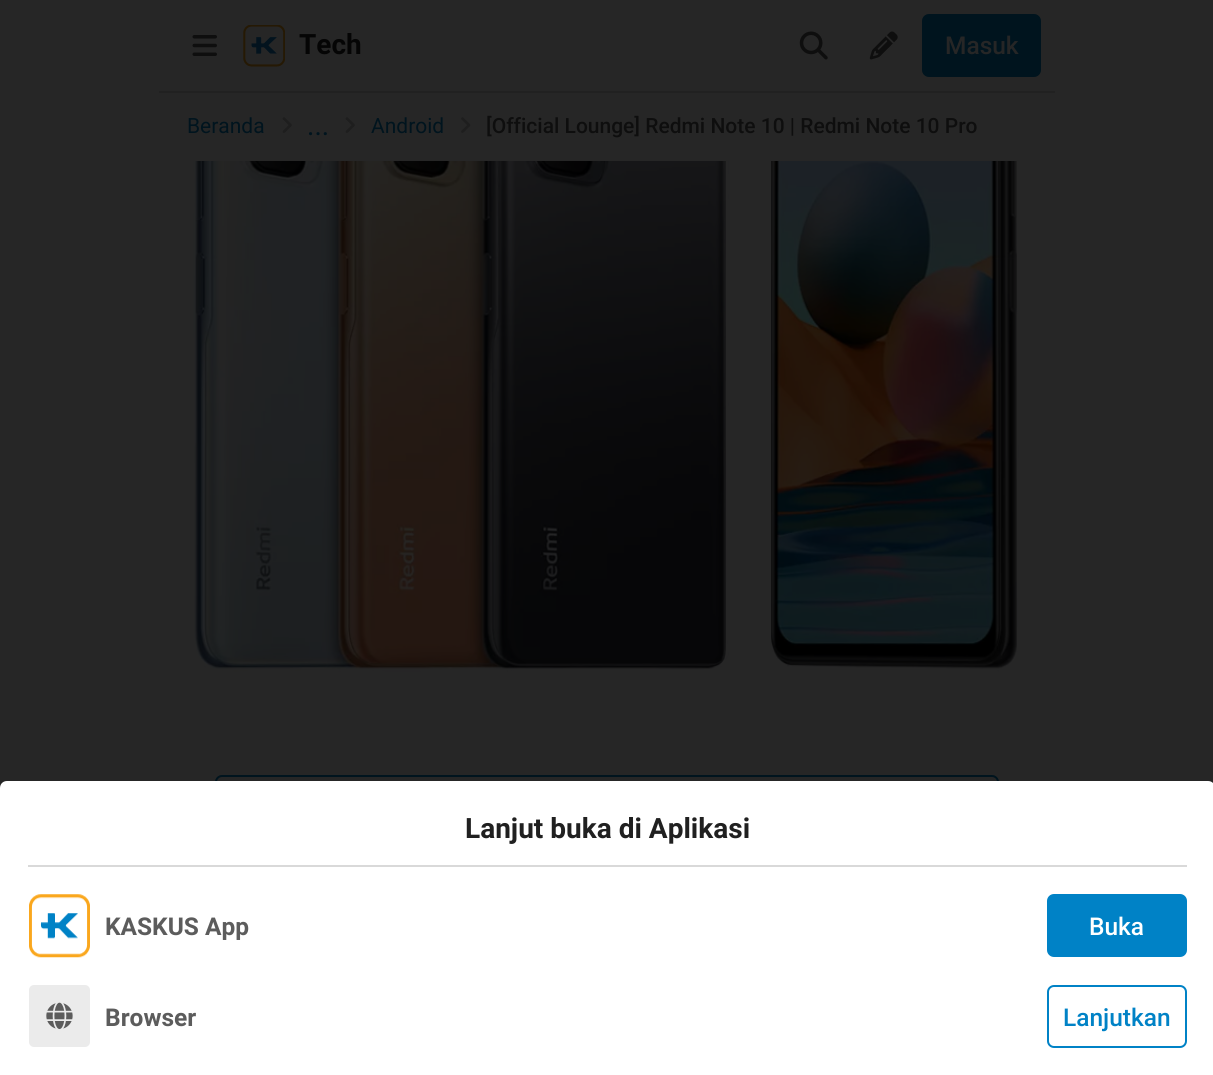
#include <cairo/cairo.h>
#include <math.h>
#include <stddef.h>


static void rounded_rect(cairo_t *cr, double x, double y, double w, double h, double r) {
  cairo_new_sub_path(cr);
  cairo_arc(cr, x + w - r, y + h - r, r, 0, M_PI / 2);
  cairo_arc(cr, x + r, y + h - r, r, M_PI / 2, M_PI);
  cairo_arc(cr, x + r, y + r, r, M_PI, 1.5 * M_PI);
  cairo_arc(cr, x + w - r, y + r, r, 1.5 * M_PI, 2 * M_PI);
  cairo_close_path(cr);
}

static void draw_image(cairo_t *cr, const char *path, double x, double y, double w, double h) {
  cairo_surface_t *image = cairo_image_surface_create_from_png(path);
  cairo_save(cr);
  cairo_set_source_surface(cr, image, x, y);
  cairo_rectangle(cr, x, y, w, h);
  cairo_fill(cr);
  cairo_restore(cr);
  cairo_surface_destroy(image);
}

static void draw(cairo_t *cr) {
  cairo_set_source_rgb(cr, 38 / 255.0, 38 / 255.0, 38 / 255.0);
  cairo_paint(cr);
  cairo_set_source_rgb(cr, 33 / 255.0, 33 / 255.0, 33 / 255.0);
  cairo_rectangle(cr, 159, 91, 896, 2);
  cairo_fill(cr);
  draw_image(cr, "images/1.png", 192, 35, 25, 21);
  draw_image(cr, "images/2.png", 243, 25, 42, 42);
  draw_image(cr, "images/3.png", 799, 31, 29, 29);
  draw_image(cr, "images/4.png", 869, 31, 29, 29);
  cairo_set_source_rgb(cr, 0, 20 / 255.0, 30 / 255.0);
  rounded_rect(cr, 923, 15, 117, 61, 6);
  cairo_fill_preserve(cr);
  cairo_stroke(cr);
  draw_image(cr, "images/5.png", 282, 117, 10, 16);
  draw_image(cr, "images/5.png", 345, 117, 10, 16);
  draw_image(cr, "images/6.png", 461, 117, 10, 16);
  draw_image(cr, "images/7.png", 193, 161, 826, 511);
  rounded_rect(cr, 216, 776, 782, 61, 6);
  cairo_stroke(cr);
  cairo_set_source_rgb(cr, 1, 1, 1);
  cairo_new_path(cr);
  cairo_move_to(cr, 7, 781);
  cairo_line_to(cr, 1208, 781);
  cairo_curve_to(cr, 1212, 781, 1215, 784, 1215, 788);
  cairo_line_to(cr, 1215, 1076);
  cairo_line_to(cr, 0, 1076);
  cairo_line_to(cr, 0, 788);
  cairo_curve_to(cr, 0, 784, 3, 781, 7, 781);
  cairo_close_path(cr);
  cairo_fill(cr);
  cairo_set_source_rgb(cr, 217 / 255.0, 217 / 255.0, 217 / 255.0);
  cairo_rectangle(cr, 28, 865, 1159, 2);
  cairo_fill(cr);
  draw_image(cr, "images/8.png", 29, 894, 61, 64);
  cairo_set_source_rgb(cr, 0, 130 / 255.0, 198 / 255.0);
  rounded_rect(cr, 1048, 895, 138, 61, 6);
  cairo_fill_preserve(cr);
  cairo_stroke(cr);
  draw_image(cr, "images/9.png", 29, 985, 61, 62);
  rounded_rect(cr, 1048, 986, 138, 61, 6);
  cairo_stroke(cr);
  cairo_select_font_face(cr, "Roboto", CAIRO_FONT_SLANT_NORMAL, CAIRO_FONT_WEIGHT_BOLD);
  cairo_set_font_size(cr, 28);
  cairo_set_source_rgb(cr, 5 / 255.0, 5 / 255.0, 5 / 255.0);
  cairo_move_to(cr, 299, 54);
  cairo_show_text(cr, "Tech");
  cairo_select_font_face(cr, "Roboto Medium", CAIRO_FONT_SLANT_NORMAL, CAIRO_FONT_WEIGHT_NORMAL);
  cairo_set_font_size(cr, 24.5);
  cairo_set_source_rgb(cr, 38 / 255.0, 38 / 255.0, 38 / 255.0);
  cairo_move_to(cr, 945, 54);
  cairo_show_text(cr, "Masuk");
  cairo_select_font_face(cr, "Roboto", CAIRO_FONT_SLANT_NORMAL, CAIRO_FONT_WEIGHT_NORMAL);
  cairo_set_font_size(cr, 21);
  cairo_set_source_rgb(cr, 0, 20 / 255.0, 30 / 255.0);
  cairo_move_to(cr, 187, 133);
  cairo_show_text(cr, "Beranda");
  cairo_set_font_size(cr, 28);
  cairo_move_to(cr, 307, 135);
  cairo_show_text(cr, "...");
  cairo_set_font_size(cr, 21);
  cairo_move_to(cr, 371, 133);
  cairo_show_text(cr, "Android");
  cairo_select_font_face(cr, "Roboto Medium", CAIRO_FONT_SLANT_NORMAL, CAIRO_FONT_WEIGHT_NORMAL);
  cairo_set_source_rgb(cr, 14 / 255.0, 14 / 255.0, 14 / 255.0);
  cairo_move_to(cr, 486, 133);
  cairo_show_text(cr, "[Official Lounge] Redmi Note 10 | Redmi Note 10 Pro");
  cairo_select_font_face(cr, "Roboto", CAIRO_FONT_SLANT_NORMAL, CAIRO_FONT_WEIGHT_BOLD);
  cairo_set_font_size(cr, 28);
  cairo_set_source_rgb(cr, 32 / 255.0, 32 / 255.0, 32 / 255.0);
  cairo_move_to(cr, 465, 838);
  cairo_show_text(cr, "Lanjut buka di Aplikasi");
  cairo_set_font_size(cr, 24.5);
  cairo_set_source_rgb(cr, 92 / 255.0, 92 / 255.0, 92 / 255.0);
  cairo_move_to(cr, 105, 935);
  cairo_show_text(cr, "KASKUS App");
  cairo_select_font_face(cr, "Roboto Medium", CAIRO_FONT_SLANT_NORMAL, CAIRO_FONT_WEIGHT_NORMAL);
  cairo_set_source_rgb(cr, 1, 1, 1);
  cairo_move_to(cr, 1089, 935);
  cairo_show_text(cr, "Buka");
  cairo_select_font_face(cr, "Roboto", CAIRO_FONT_SLANT_NORMAL, CAIRO_FONT_WEIGHT_BOLD);
  cairo_set_source_rgb(cr, 92 / 255.0, 92 / 255.0, 92 / 255.0);
  cairo_move_to(cr, 105, 1026);
  cairo_show_text(cr, "Browser");
  cairo_select_font_face(cr, "Roboto Medium", CAIRO_FONT_SLANT_NORMAL, CAIRO_FONT_WEIGHT_NORMAL);
  cairo_set_source_rgb(cr, 0, 130 / 255.0, 198 / 255.0);
  cairo_move_to(cr, 1063, 1026);
  cairo_show_text(cr, "Lanjutkan");
}

int main(void) {
  cairo_surface_t *surface = cairo_image_surface_create(CAIRO_FORMAT_RGB24, 1213, 1075);
  cairo_t *cr = cairo_create(surface);
  cairo_font_options_t *options = cairo_font_options_create();
  cairo_font_options_set_hint_metrics(options, CAIRO_HINT_METRICS_OFF);
  cairo_font_options_set_hint_style(options, CAIRO_HINT_STYLE_NONE);
  cairo_set_font_options(cr, options);
  cairo_set_miter_limit(cr, 4);
  draw(cr);
  cairo_surface_write_to_png(surface, "out.png");
  cairo_font_options_destroy(options);
  cairo_destroy(cr);
  cairo_surface_destroy(surface);
  return 0;
}
